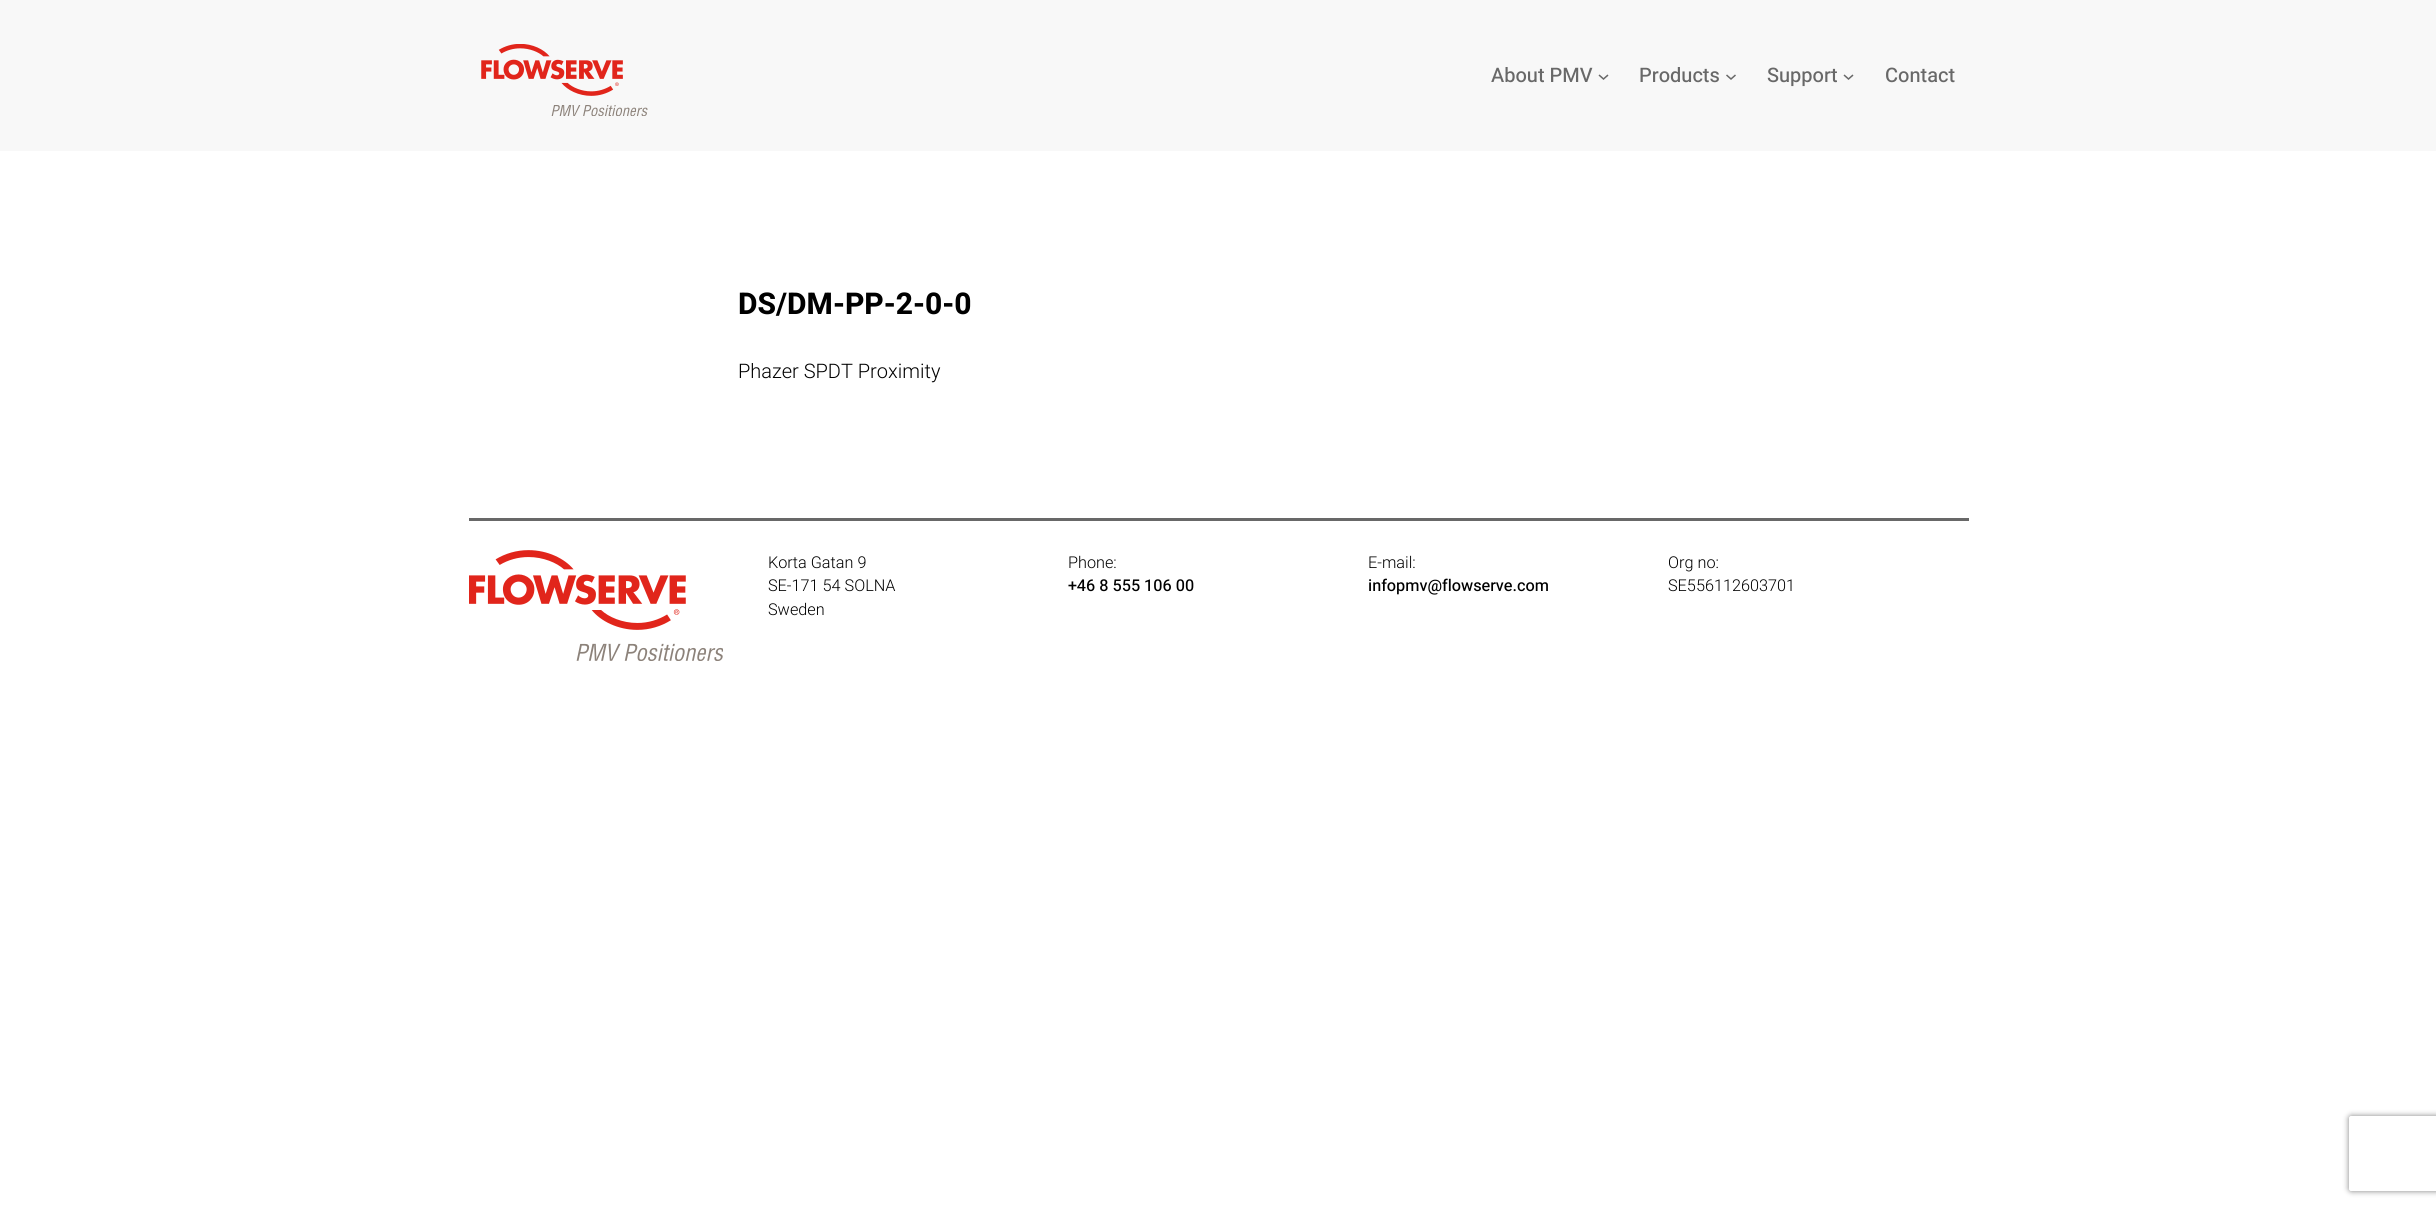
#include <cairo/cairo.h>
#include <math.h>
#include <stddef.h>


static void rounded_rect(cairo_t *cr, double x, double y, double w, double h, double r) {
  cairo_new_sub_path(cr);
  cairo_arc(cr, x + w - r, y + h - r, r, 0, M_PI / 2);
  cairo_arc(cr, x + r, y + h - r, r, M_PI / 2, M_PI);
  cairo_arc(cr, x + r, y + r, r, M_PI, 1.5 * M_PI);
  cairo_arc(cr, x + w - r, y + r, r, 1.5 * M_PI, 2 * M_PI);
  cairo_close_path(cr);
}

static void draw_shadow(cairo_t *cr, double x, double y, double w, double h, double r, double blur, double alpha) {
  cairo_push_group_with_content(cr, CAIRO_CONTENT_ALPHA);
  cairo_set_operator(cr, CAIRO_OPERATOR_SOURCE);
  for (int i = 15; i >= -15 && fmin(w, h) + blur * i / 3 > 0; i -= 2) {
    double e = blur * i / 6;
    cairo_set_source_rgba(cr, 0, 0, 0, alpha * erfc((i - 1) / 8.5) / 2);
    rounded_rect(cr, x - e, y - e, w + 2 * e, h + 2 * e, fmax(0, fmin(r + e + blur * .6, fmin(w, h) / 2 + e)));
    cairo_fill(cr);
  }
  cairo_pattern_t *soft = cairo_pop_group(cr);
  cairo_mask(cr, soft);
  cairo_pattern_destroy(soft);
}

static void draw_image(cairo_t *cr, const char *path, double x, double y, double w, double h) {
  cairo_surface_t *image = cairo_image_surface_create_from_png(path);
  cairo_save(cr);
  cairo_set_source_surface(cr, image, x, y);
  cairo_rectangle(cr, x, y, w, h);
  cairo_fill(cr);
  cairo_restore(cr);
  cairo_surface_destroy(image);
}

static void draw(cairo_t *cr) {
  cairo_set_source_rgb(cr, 1, 1, 1);
  cairo_paint(cr);
  cairo_set_source_rgb(cr, 248 / 255.0, 248 / 255.0, 248 / 255.0);
  cairo_rectangle(cr, 0, 0, 2436, 151);
  cairo_fill(cr);
  draw_image(cr, "images/1.png", 481, 44, 167, 72);
  cairo_new_path(cr);
  cairo_move_to(cr, 1599, 75);
  cairo_line_to(cr, 1603.5, 79);
  cairo_line_to(cr, 1608, 75);
  cairo_set_source_rgb(cr, 104 / 255.0, 104 / 255.0, 104 / 255.0);
  cairo_set_line_width(cr, 1.5);
  cairo_stroke(cr);
  cairo_new_path(cr);
  cairo_move_to(cr, 1726.5, 75);
  cairo_line_to(cr, 1731, 79);
  cairo_line_to(cr, 1735.5, 75);
  cairo_stroke(cr);
  cairo_new_path(cr);
  cairo_move_to(cr, 1844, 75);
  cairo_line_to(cr, 1848.5, 79);
  cairo_line_to(cr, 1853, 75);
  cairo_stroke(cr);
  cairo_rectangle(cr, 469, 518, 1500, 3);
  cairo_fill(cr);
  draw_image(cr, "images/2.png", 469, 550, 254, 111);
  cairo_save(cr);
  cairo_set_fill_rule(cr, CAIRO_FILL_RULE_EVEN_ODD);
  cairo_new_path(cr);
  cairo_move_to(cr, 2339, 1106);
  cairo_line_to(cr, 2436, 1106);
  cairo_line_to(cr, 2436, 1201);
  cairo_line_to(cr, 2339, 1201);
  cairo_close_path(cr);
  cairo_move_to(cr, 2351.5, 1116);
  cairo_line_to(cr, 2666.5, 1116);
  cairo_curve_to(cr, 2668, 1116, 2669, 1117, 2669, 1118.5);
  cairo_line_to(cr, 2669, 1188.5);
  cairo_curve_to(cr, 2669, 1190, 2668, 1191, 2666.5, 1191);
  cairo_line_to(cr, 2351.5, 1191);
  cairo_curve_to(cr, 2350, 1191, 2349, 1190, 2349, 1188.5);
  cairo_line_to(cr, 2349, 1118.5);
  cairo_curve_to(cr, 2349, 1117, 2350, 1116, 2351.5, 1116);
  cairo_close_path(cr);
  cairo_clip(cr);
  cairo_set_source_rgb(cr, 128 / 255.0, 128 / 255.0, 128 / 255.0);
  draw_shadow(cr, 2349, 1116, 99, 75, 2.5, 3, 1);
  cairo_restore(cr);
  cairo_select_font_face(cr, "Heebo Medium", CAIRO_FONT_SLANT_NORMAL, CAIRO_FONT_WEIGHT_NORMAL);
  cairo_set_font_size(cr, 20);
  cairo_move_to(cr, 1491, 82);
  cairo_show_text(cr, "About PMV");
  cairo_move_to(cr, 1639, 82);
  cairo_show_text(cr, "Products");
  cairo_move_to(cr, 1767, 82);
  cairo_show_text(cr, "Support");
  cairo_move_to(cr, 1885, 82);
  cairo_show_text(cr, "Contact");
  cairo_select_font_face(cr, "Heebo", CAIRO_FONT_SLANT_NORMAL, CAIRO_FONT_WEIGHT_BOLD);
  cairo_set_font_size(cr, 30);
  cairo_set_source_rgb(cr, 0, 0, 0);
  cairo_move_to(cr, 738, 314);
  cairo_show_text(cr, "DS/DM-PP-2-0-0");
  cairo_select_font_face(cr, "Heebo Light", CAIRO_FONT_SLANT_NORMAL, CAIRO_FONT_WEIGHT_NORMAL);
  cairo_set_font_size(cr, 20);
  cairo_move_to(cr, 738, 378);
  cairo_show_text(cr, "Phazer SPDT Proximity");
  cairo_set_font_size(cr, 16.25);
  cairo_move_to(cr, 768, 568);
  cairo_show_text(cr, "Korta Gatan 9");
  cairo_move_to(cr, 768, 591);
  cairo_show_text(cr, "SE-171 54 SOLNA");
  cairo_move_to(cr, 768, 615);
  cairo_show_text(cr, "Sweden");
  cairo_move_to(cr, 1068, 568);
  cairo_show_text(cr, "Phone:");
  cairo_select_font_face(cr, "Heebo Medium", CAIRO_FONT_SLANT_NORMAL, CAIRO_FONT_WEIGHT_NORMAL);
  cairo_move_to(cr, 1068, 591);
  cairo_show_text(cr, "+46 8 555 106 00");
  cairo_select_font_face(cr, "Heebo Light", CAIRO_FONT_SLANT_NORMAL, CAIRO_FONT_WEIGHT_NORMAL);
  cairo_move_to(cr, 1368, 568);
  cairo_show_text(cr, "E-mail:");
  cairo_select_font_face(cr, "Heebo Medium", CAIRO_FONT_SLANT_NORMAL, CAIRO_FONT_WEIGHT_NORMAL);
  cairo_move_to(cr, 1368, 591);
  cairo_show_text(cr, "infopmv@flowserve.com");
  cairo_select_font_face(cr, "Heebo Light", CAIRO_FONT_SLANT_NORMAL, CAIRO_FONT_WEIGHT_NORMAL);
  cairo_move_to(cr, 1668, 568);
  cairo_show_text(cr, "Org no:");
  cairo_move_to(cr, 1668, 591);
  cairo_show_text(cr, "SE556112603701");
}

int main(void) {
  cairo_surface_t *surface = cairo_image_surface_create(CAIRO_FORMAT_RGB24, 2436, 1208);
  cairo_t *cr = cairo_create(surface);
  cairo_font_options_t *options = cairo_font_options_create();
  cairo_font_options_set_hint_metrics(options, CAIRO_HINT_METRICS_OFF);
  cairo_font_options_set_hint_style(options, CAIRO_HINT_STYLE_NONE);
  cairo_set_font_options(cr, options);
  cairo_set_miter_limit(cr, 4);
  draw(cr);
  cairo_surface_write_to_png(surface, "out.png");
  cairo_font_options_destroy(options);
  cairo_destroy(cr);
  cairo_surface_destroy(surface);
  return 0;
}
